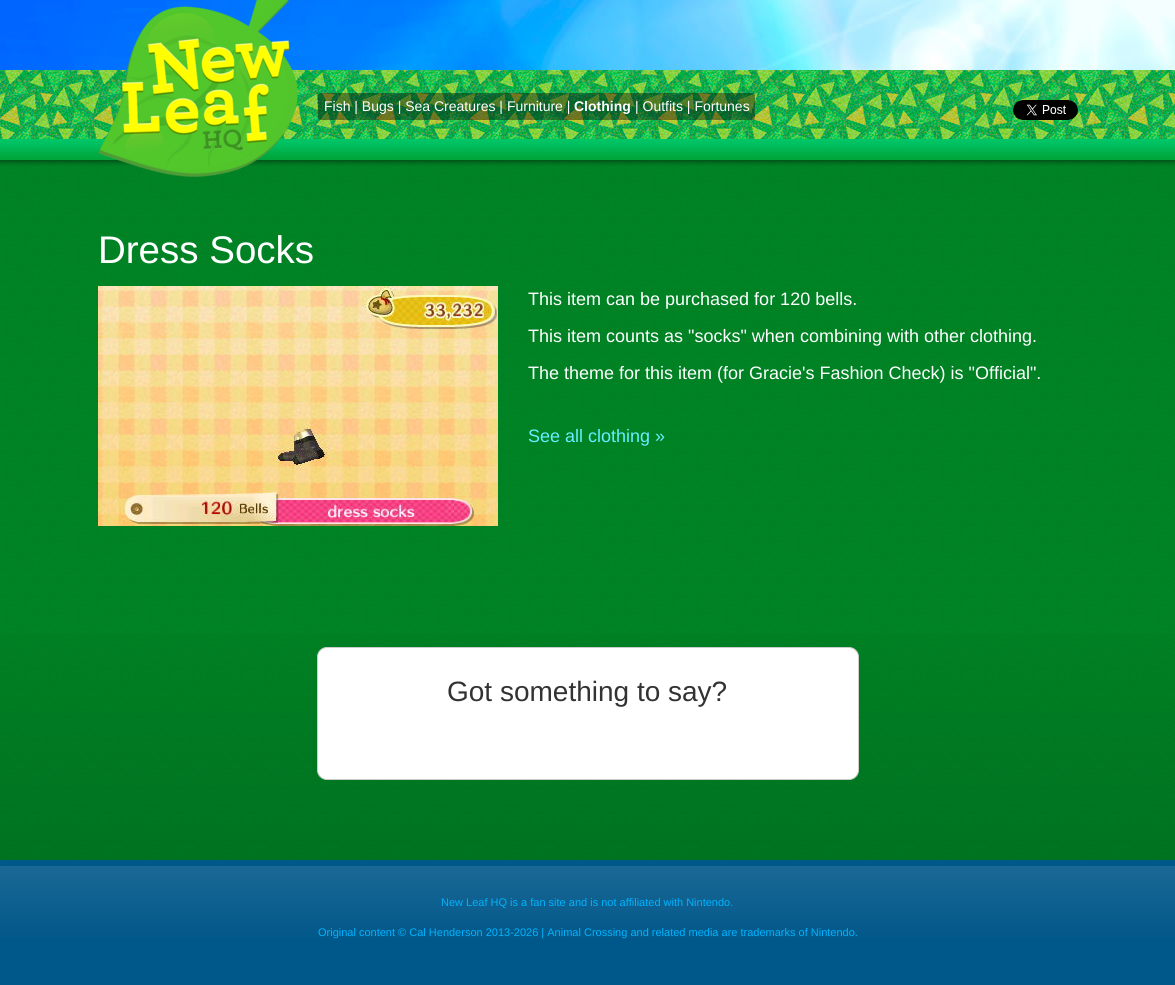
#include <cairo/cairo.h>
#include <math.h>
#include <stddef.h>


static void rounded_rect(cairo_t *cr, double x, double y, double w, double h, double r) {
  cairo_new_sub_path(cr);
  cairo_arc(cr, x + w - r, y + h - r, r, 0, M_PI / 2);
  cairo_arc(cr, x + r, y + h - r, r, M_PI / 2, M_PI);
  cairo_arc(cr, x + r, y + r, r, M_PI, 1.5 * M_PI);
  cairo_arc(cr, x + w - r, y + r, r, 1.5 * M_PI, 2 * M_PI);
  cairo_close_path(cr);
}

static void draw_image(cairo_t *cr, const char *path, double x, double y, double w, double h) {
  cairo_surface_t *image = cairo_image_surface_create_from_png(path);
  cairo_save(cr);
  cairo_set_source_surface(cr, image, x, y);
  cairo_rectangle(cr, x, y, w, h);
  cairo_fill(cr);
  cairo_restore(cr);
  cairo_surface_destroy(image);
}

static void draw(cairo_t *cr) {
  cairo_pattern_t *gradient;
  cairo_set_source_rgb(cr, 1, 1, 1);
  cairo_paint(cr);
  draw_image(cr, "images/1.png", 0, 0, 1175, 70);
  draw_image(cr, "images/4.png", 0, 139, 1175, 721);
  draw_image(cr, "images/5.png", 0, 70, 1175, 96);
  draw_image(cr, "images/2.png", 98, 0, 200, 177);
  cairo_set_source_rgba(cr, 0, 0, 0, 0.4);
  rounded_rect(cr, 318, 93, 437, 27, 3);
  cairo_fill(cr);
  draw_image(cr, "images/3.png", 1013, 100, 65, 20);
  draw_image(cr, "images/6.png", 98, 286, 400, 240);
  gradient = cairo_pattern_create_linear(588, 130, 588, 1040);
  cairo_pattern_add_color_stop_rgba(gradient, 0.5, 0, 0, 0, 0);
  cairo_pattern_add_color_stop_rgba(gradient, 1, 0, 0, 0, 0.2);
  cairo_set_source(cr, gradient);
  cairo_pattern_destroy(gradient);
  cairo_rectangle(cr, 0, 634, 1175, 226);
  cairo_fill(cr);
  cairo_set_source_rgb(cr, 1, 1, 1);
  rounded_rect(cr, 317.5, 647.5, 541, 132, 9.5);
  cairo_fill_preserve(cr);
  cairo_set_source_rgb(cr, 204 / 255.0, 204 / 255.0, 204 / 255.0);
  cairo_set_line_width(cr, 1);
  cairo_stroke(cr);
  cairo_set_source_rgb(cr, 0, 87 / 255.0, 137 / 255.0);
  cairo_rectangle(cr, 0, 860, 1175, 125);
  cairo_fill(cr);
  gradient = cairo_pattern_create_linear(588, 866, 588, 944);
  cairo_pattern_add_color_stop_rgba(gradient, 0, 26 / 255.0, 104 / 255.0, 149 / 255.0, 1);
  cairo_pattern_add_color_stop_rgba(gradient, 1, 0, 87 / 255.0, 137 / 255.0, 1);
  cairo_set_source(cr, gradient);
  cairo_pattern_destroy(gradient);
  cairo_rectangle(cr, 0, 866, 1175, 71);
  cairo_fill(cr);
  cairo_select_font_face(cr, "Liberation Sans", CAIRO_FONT_SLANT_NORMAL, CAIRO_FONT_WEIGHT_NORMAL);
  cairo_set_font_size(cr, 14);
  cairo_set_source_rgb(cr, 1, 1, 1);
  cairo_move_to(cr, 324, 111);
  cairo_show_text(cr, "Fish | Bugs | Sea Creatures | Furniture |");
  cairo_select_font_face(cr, "Liberation Sans", CAIRO_FONT_SLANT_NORMAL, CAIRO_FONT_WEIGHT_BOLD);
  cairo_move_to(cr, 574, 111);
  cairo_show_text(cr, "Clothing");
  cairo_select_font_face(cr, "Liberation Sans", CAIRO_FONT_SLANT_NORMAL, CAIRO_FONT_WEIGHT_NORMAL);
  cairo_move_to(cr, 635, 111);
  cairo_show_text(cr, "| Outfits | Fortunes");
  cairo_set_font_size(cr, 38.5);
  cairo_move_to(cr, 98, 263);
  cairo_show_text(cr, "Dress Socks");
  cairo_set_font_size(cr, 18);
  cairo_move_to(cr, 528, 305);
  cairo_show_text(cr, "This item can be purchased for 120 bells.");
  cairo_move_to(cr, 528, 342);
  cairo_show_text(cr, "This item counts as \"socks\" when combining with other clothing.");
  cairo_move_to(cr, 528, 379);
  cairo_show_text(cr, "The theme for this item (for Gracie's Fashion Check) is \"Official\".");
  cairo_set_source_rgb(cr, 102 / 255.0, 238 / 255.0, 1);
  cairo_move_to(cr, 528, 442);
  cairo_show_text(cr, "See all clothing »");
  cairo_set_font_size(cr, 28);
  cairo_set_source_rgb(cr, 51 / 255.0, 51 / 255.0, 51 / 255.0);
  cairo_move_to(cr, 447, 701);
  cairo_show_text(cr, "Got something to say?");
  cairo_set_font_size(cr, 11);
  cairo_set_source_rgb(cr, 0, 179 / 255.0, 1);
  cairo_move_to(cr, 441, 906);
  cairo_show_text(cr, "New Leaf HQ is a fan site and is not affiliated with Nintendo.");
  cairo_move_to(cr, 318, 936);
  cairo_show_text(cr, "Original content © Cal Henderson 2013-2026 | Animal Crossing and related media are trademarks of Nintendo.");
}

int main(void) {
  cairo_surface_t *surface = cairo_image_surface_create(CAIRO_FORMAT_RGB24, 1175, 985);
  cairo_t *cr = cairo_create(surface);
  cairo_font_options_t *options = cairo_font_options_create();
  cairo_font_options_set_hint_metrics(options, CAIRO_HINT_METRICS_OFF);
  cairo_font_options_set_hint_style(options, CAIRO_HINT_STYLE_NONE);
  cairo_set_font_options(cr, options);
  cairo_set_miter_limit(cr, 4);
  draw(cr);
  cairo_surface_write_to_png(surface, "out.png");
  cairo_font_options_destroy(options);
  cairo_destroy(cr);
  cairo_surface_destroy(surface);
  return 0;
}
